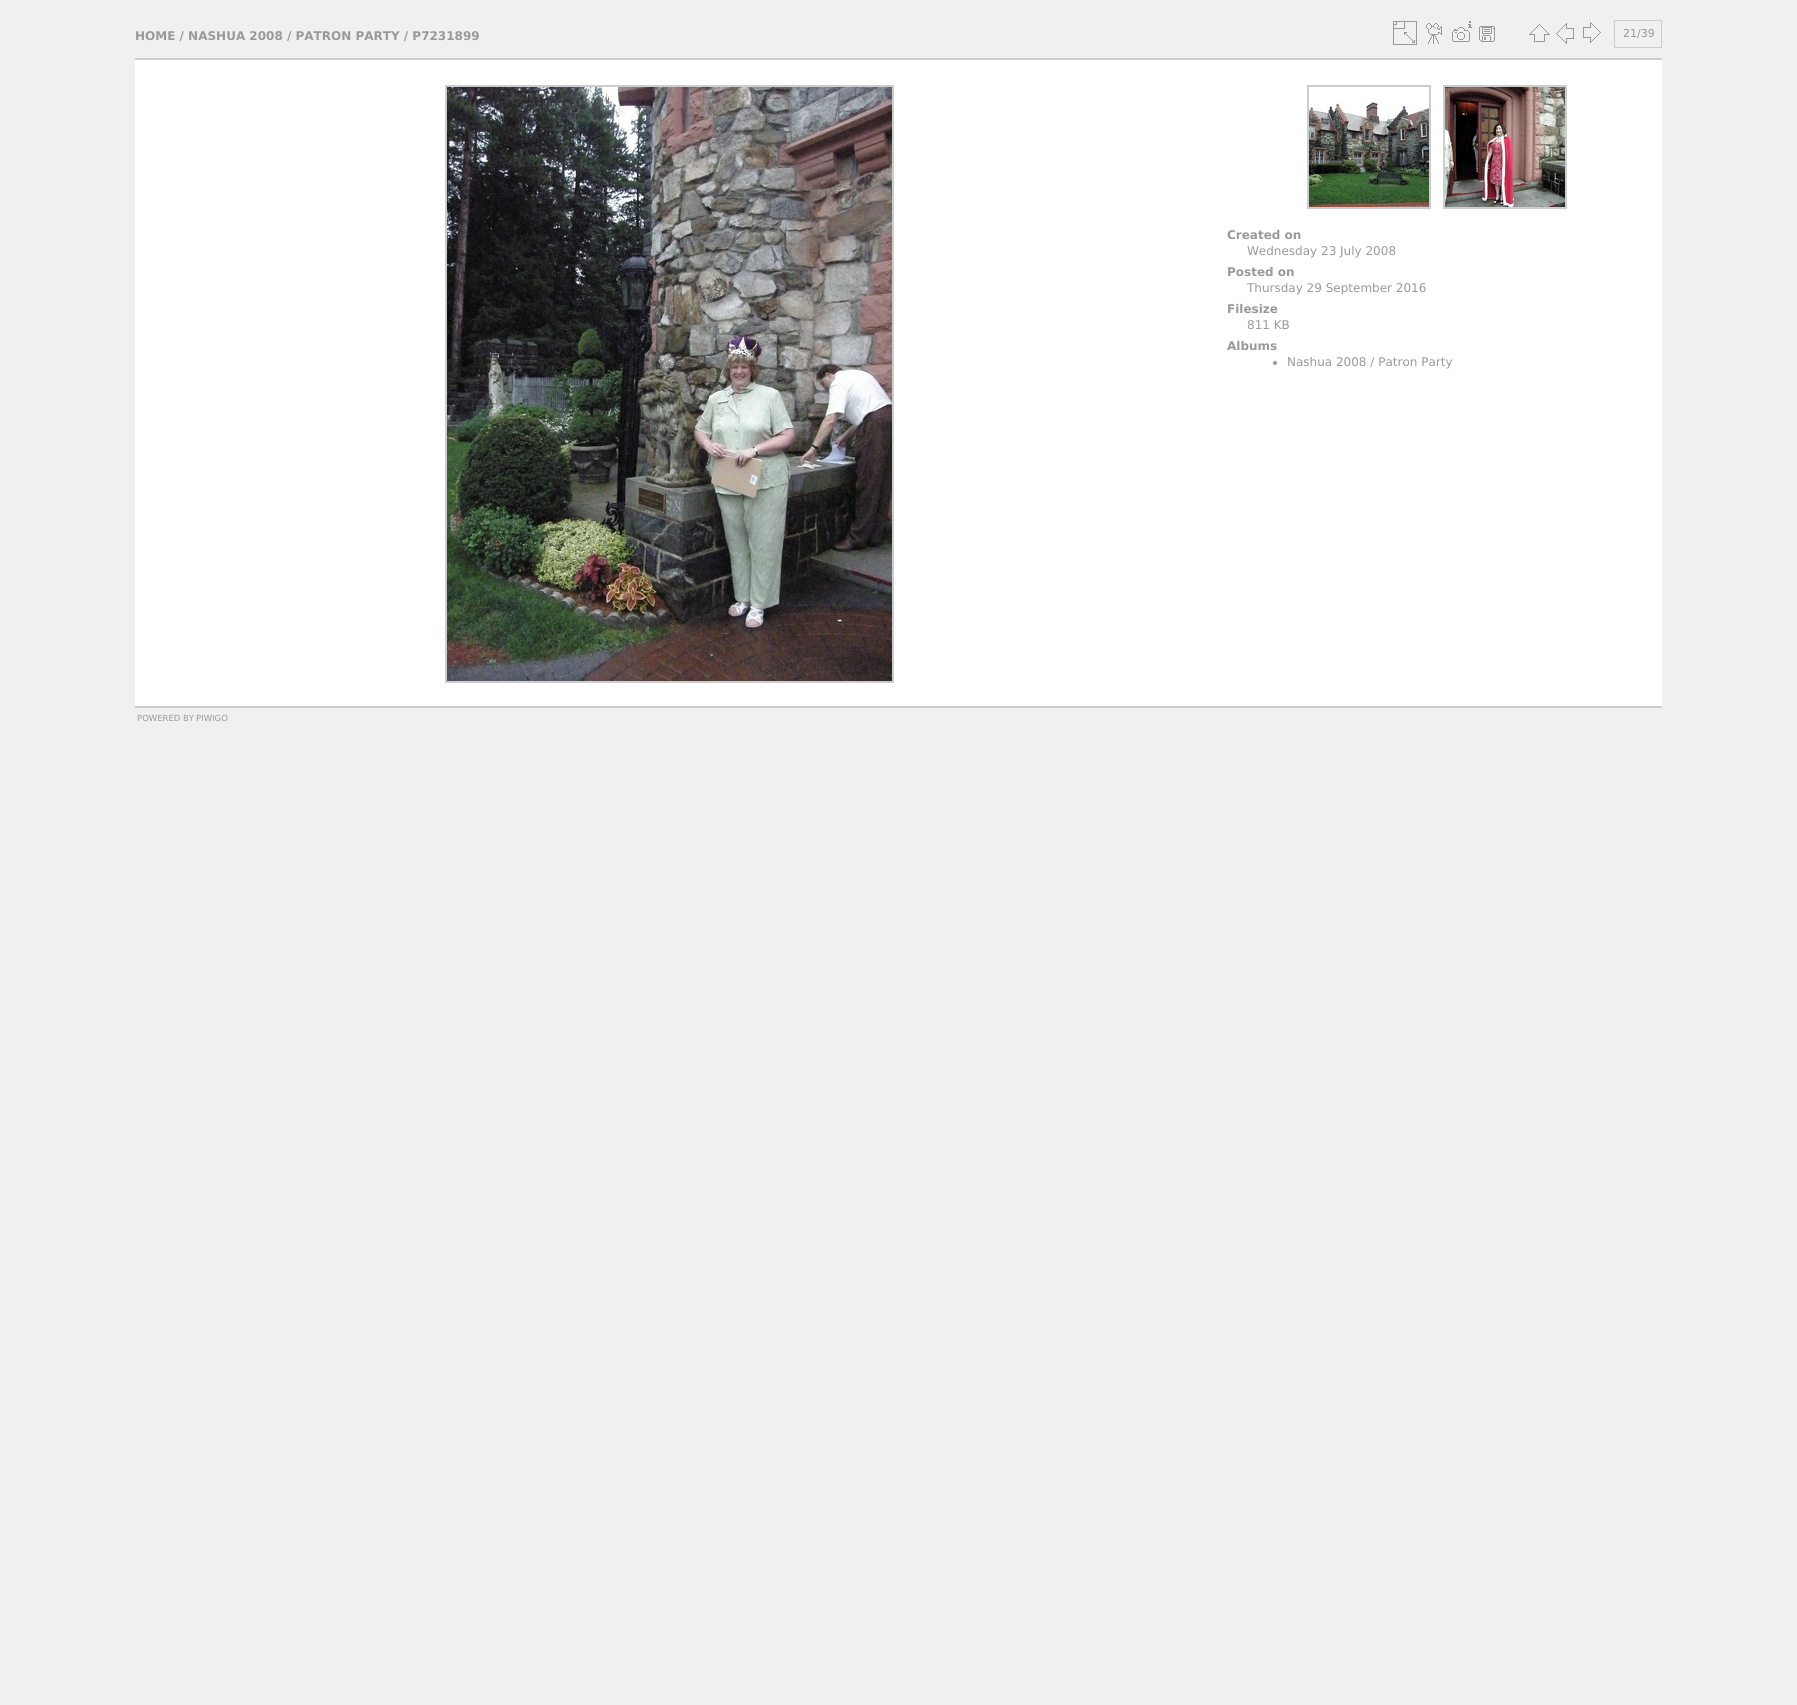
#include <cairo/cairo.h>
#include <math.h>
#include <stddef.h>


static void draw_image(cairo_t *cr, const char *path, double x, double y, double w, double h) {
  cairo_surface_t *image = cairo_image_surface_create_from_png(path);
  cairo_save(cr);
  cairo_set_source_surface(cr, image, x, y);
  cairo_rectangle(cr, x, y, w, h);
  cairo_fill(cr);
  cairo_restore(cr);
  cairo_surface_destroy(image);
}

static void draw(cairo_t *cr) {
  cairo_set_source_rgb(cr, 240 / 255.0, 240 / 255.0, 240 / 255.0);
  cairo_paint(cr);
  cairo_set_source_rgb(cr, 205 / 255.0, 205 / 255.0, 205 / 255.0);
  cairo_rectangle(cr, 135, 706, 1527, 2);
  cairo_fill(cr);
  draw_image(cr, "images/1.png", 1393, 21, 24, 24);
  draw_image(cr, "images/2.png", 1426, 23, 16, 21);
  draw_image(cr, "images/3.png", 1452, 21, 20, 21);
  draw_image(cr, "images/4.png", 1479, 26, 16, 16);
  draw_image(cr, "images/5.png", 1529, 24, 21, 18);
  draw_image(cr, "images/6.png", 1556, 23, 18, 21);
  draw_image(cr, "images/7.png", 1583, 22, 18, 21);
  cairo_rectangle(cr, 1614.5, 20.5, 47, 27);
  cairo_set_line_width(cr, 1);
  cairo_stroke(cr);
  cairo_set_source_rgb(cr, 1, 1, 1);
  cairo_rectangle(cr, 135, 60, 1527, 646);
  cairo_fill(cr);
  cairo_set_source_rgb(cr, 205 / 255.0, 205 / 255.0, 205 / 255.0);
  cairo_rectangle(cr, 135, 58, 1527, 2);
  cairo_fill(cr);
  cairo_rectangle(cr, 446, 86, 447, 596);
  cairo_set_line_width(cr, 2);
  cairo_stroke(cr);
  draw_image(cr, "images/8.png", 447, 87, 445, 594);
  cairo_rectangle(cr, 1308, 86, 122, 122);
  cairo_stroke(cr);
  draw_image(cr, "images/9.png", 1309, 99, 120, 108);
  cairo_rectangle(cr, 1444, 86, 122, 122);
  cairo_stroke(cr);
  draw_image(cr, "images/10.png", 1445, 87, 120, 120);
  cairo_set_source_rgb(cr, 153 / 255.0, 153 / 255.0, 153 / 255.0);
  cairo_arc(cr, 1275, 363, 2, 0, 2 * M_PI);
  cairo_fill(cr);
  cairo_select_font_face(cr, "DejaVu Sans", CAIRO_FONT_SLANT_NORMAL, CAIRO_FONT_WEIGHT_BOLD);
  cairo_set_font_size(cr, 12);
  cairo_move_to(cr, 135, 40);
  cairo_show_text(cr, "HOME / NASHUA 2008 / PATRON PARTY / P7231899");
  cairo_select_font_face(cr, "DejaVu Sans", CAIRO_FONT_SLANT_NORMAL, CAIRO_FONT_WEIGHT_NORMAL);
  cairo_set_font_size(cr, 11);
  cairo_move_to(cr, 1623, 37);
  cairo_show_text(cr, "21/39");
  cairo_select_font_face(cr, "DejaVu Sans", CAIRO_FONT_SLANT_NORMAL, CAIRO_FONT_WEIGHT_BOLD);
  cairo_set_font_size(cr, 12);
  cairo_move_to(cr, 1227, 239);
  cairo_show_text(cr, "Created on");
  cairo_select_font_face(cr, "DejaVu Sans", CAIRO_FONT_SLANT_NORMAL, CAIRO_FONT_WEIGHT_NORMAL);
  cairo_move_to(cr, 1247, 255);
  cairo_show_text(cr, "Wednesday 23 July 2008");
  cairo_select_font_face(cr, "DejaVu Sans", CAIRO_FONT_SLANT_NORMAL, CAIRO_FONT_WEIGHT_BOLD);
  cairo_move_to(cr, 1227, 276);
  cairo_show_text(cr, "Posted on");
  cairo_select_font_face(cr, "DejaVu Sans", CAIRO_FONT_SLANT_NORMAL, CAIRO_FONT_WEIGHT_NORMAL);
  cairo_move_to(cr, 1247, 292);
  cairo_show_text(cr, "Thursday 29 September 2016");
  cairo_select_font_face(cr, "DejaVu Sans", CAIRO_FONT_SLANT_NORMAL, CAIRO_FONT_WEIGHT_BOLD);
  cairo_move_to(cr, 1227, 313);
  cairo_show_text(cr, "Filesize");
  cairo_select_font_face(cr, "DejaVu Sans", CAIRO_FONT_SLANT_NORMAL, CAIRO_FONT_WEIGHT_NORMAL);
  cairo_move_to(cr, 1247, 329);
  cairo_show_text(cr, "811 KB");
  cairo_select_font_face(cr, "DejaVu Sans", CAIRO_FONT_SLANT_NORMAL, CAIRO_FONT_WEIGHT_BOLD);
  cairo_move_to(cr, 1227, 350);
  cairo_show_text(cr, "Albums");
  cairo_select_font_face(cr, "DejaVu Sans", CAIRO_FONT_SLANT_NORMAL, CAIRO_FONT_WEIGHT_NORMAL);
  cairo_move_to(cr, 1287, 366);
  cairo_show_text(cr, "Nashua 2008 / Patron Party");
  cairo_set_font_size(cr, 8.5);
  cairo_move_to(cr, 137, 721);
  cairo_show_text(cr, "POWERED");
  cairo_move_to(cr, 183, 721);
  cairo_show_text(cr, "BY");
  cairo_move_to(cr, 196, 721);
  cairo_show_text(cr, "PIWIGO");
}

int main(void) {
  cairo_surface_t *surface = cairo_image_surface_create(CAIRO_FORMAT_RGB24, 1797, 1705);
  cairo_t *cr = cairo_create(surface);
  cairo_font_options_t *options = cairo_font_options_create();
  cairo_font_options_set_hint_metrics(options, CAIRO_HINT_METRICS_OFF);
  cairo_font_options_set_hint_style(options, CAIRO_HINT_STYLE_NONE);
  cairo_set_font_options(cr, options);
  cairo_set_miter_limit(cr, 4);
  draw(cr);
  cairo_surface_write_to_png(surface, "out.png");
  cairo_font_options_destroy(options);
  cairo_destroy(cr);
  cairo_surface_destroy(surface);
  return 0;
}
